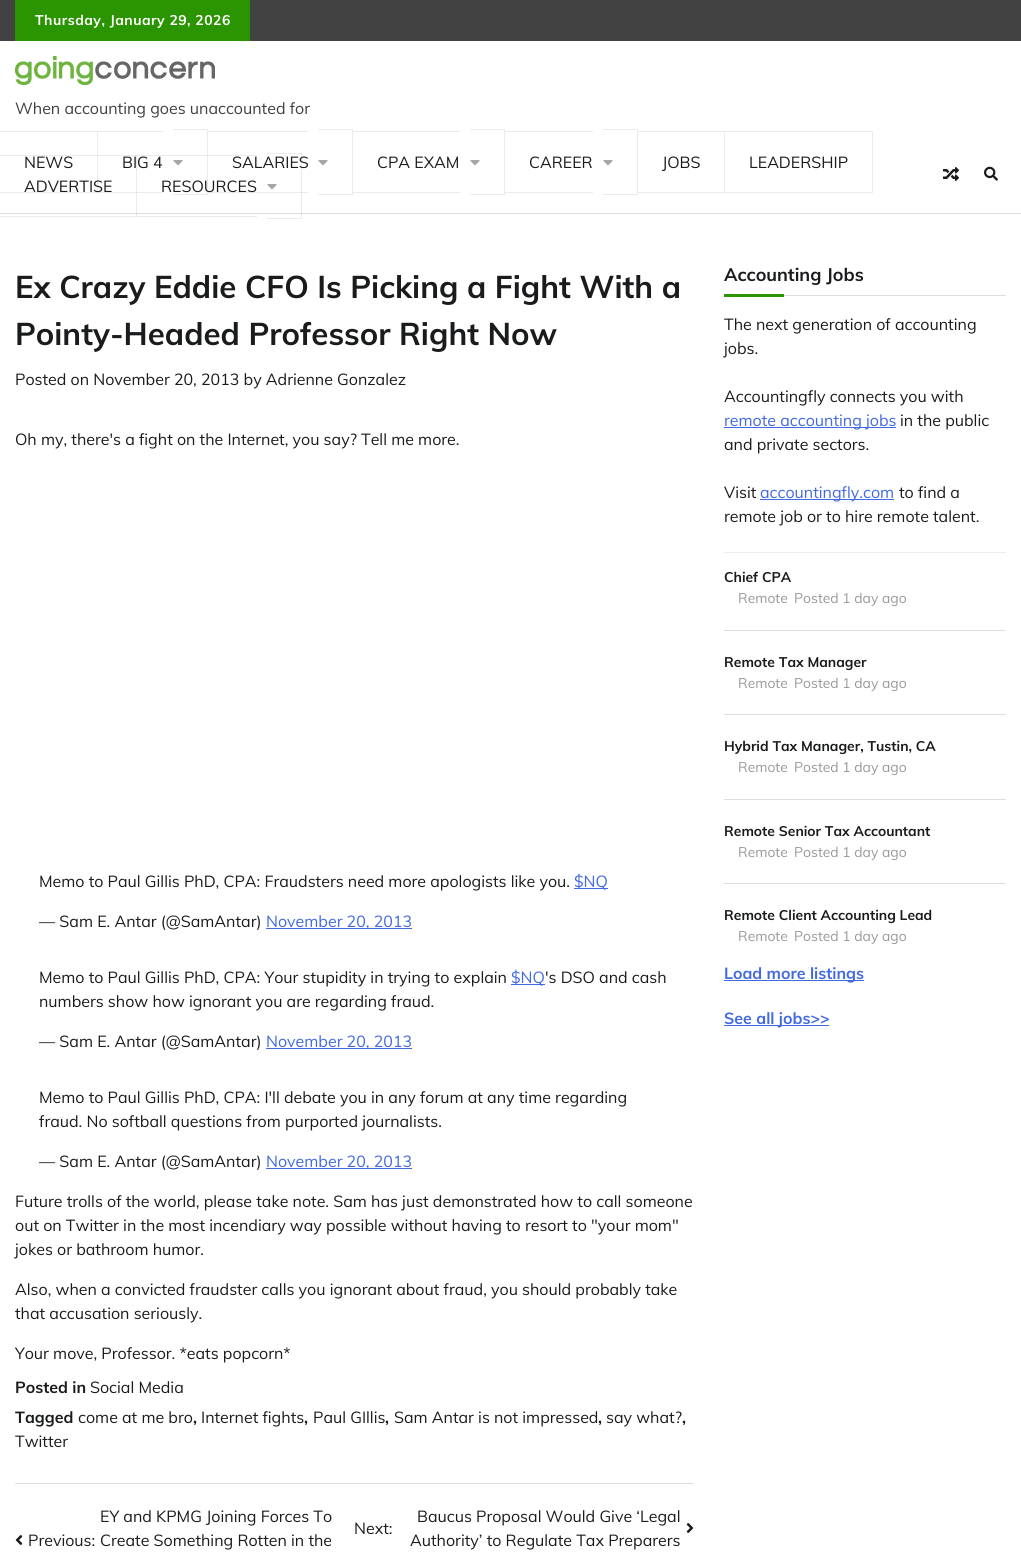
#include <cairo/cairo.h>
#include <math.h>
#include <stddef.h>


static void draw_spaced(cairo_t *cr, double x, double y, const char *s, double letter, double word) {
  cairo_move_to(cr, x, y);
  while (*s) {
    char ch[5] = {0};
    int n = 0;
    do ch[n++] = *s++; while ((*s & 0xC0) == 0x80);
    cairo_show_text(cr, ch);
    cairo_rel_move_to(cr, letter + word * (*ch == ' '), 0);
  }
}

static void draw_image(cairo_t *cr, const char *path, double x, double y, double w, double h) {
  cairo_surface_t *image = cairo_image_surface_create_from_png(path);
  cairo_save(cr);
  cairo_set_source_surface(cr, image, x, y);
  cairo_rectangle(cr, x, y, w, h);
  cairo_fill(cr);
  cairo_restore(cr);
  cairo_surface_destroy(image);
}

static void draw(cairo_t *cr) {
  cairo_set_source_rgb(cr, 1, 1, 1);
  cairo_paint(cr);
  cairo_set_source_rgb(cr, 66 / 255.0, 66 / 255.0, 66 / 255.0);
  cairo_rectangle(cr, 0, 0, 1021, 41);
  cairo_fill(cr);
  cairo_set_source_rgb(cr, 42 / 255.0, 148 / 255.0, 1 / 255.0);
  cairo_rectangle(cr, 15, 0, 235, 41);
  cairo_fill(cr);
  draw_image(cr, "images/1.png", 15, 56, 200, 29);
  cairo_set_source_rgb(cr, 222 / 255.0, 222 / 255.0, 222 / 255.0);
  cairo_rectangle(cr, 0, 213, 1021, 1);
  cairo_fill(cr);
  cairo_set_source_rgb(cr, 234 / 255.0, 234 / 255.0, 234 / 255.0);
  cairo_new_path(cr);
  cairo_move_to(cr, 0, 131);
  cairo_line_to(cr, 98, 131);
  cairo_line_to(cr, 97, 132);
  cairo_line_to(cr, 0, 132);
  cairo_close_path(cr);
  cairo_fill(cr);
  cairo_set_source_rgba(cr, 0, 0, 0, 0.08);
  cairo_new_path(cr);
  cairo_move_to(cr, 98, 131);
  cairo_line_to(cr, 98, 193);
  cairo_line_to(cr, 97, 192);
  cairo_line_to(cr, 97, 132);
  cairo_close_path(cr);
  cairo_fill(cr);
  cairo_new_path(cr);
  cairo_move_to(cr, 98, 193);
  cairo_line_to(cr, 0, 193);
  cairo_line_to(cr, 0, 192);
  cairo_line_to(cr, 97, 192);
  cairo_close_path(cr);
  cairo_fill(cr);
  cairo_set_source_rgb(cr, 234 / 255.0, 234 / 255.0, 234 / 255.0);
  cairo_rectangle(cr, 98, 131, 65, 1);
  cairo_fill(cr);
  cairo_set_source_rgb(cr, 235 / 255.0, 235 / 255.0, 235 / 255.0);
  cairo_rectangle(cr, 98, 192, 65, 1);
  cairo_fill(cr);
  cairo_new_path(cr);
  cairo_move_to(cr, 173, 129);
  cairo_line_to(cr, 208, 129);
  cairo_line_to(cr, 207, 130);
  cairo_line_to(cr, 173, 130);
  cairo_close_path(cr);
  cairo_fill(cr);
  cairo_set_source_rgba(cr, 0, 0, 0, 0.08);
  cairo_new_path(cr);
  cairo_move_to(cr, 208, 129);
  cairo_line_to(cr, 208, 195);
  cairo_line_to(cr, 207, 194);
  cairo_line_to(cr, 207, 130);
  cairo_close_path(cr);
  cairo_fill(cr);
  cairo_new_path(cr);
  cairo_move_to(cr, 208, 195);
  cairo_line_to(cr, 173, 195);
  cairo_line_to(cr, 173, 194);
  cairo_line_to(cr, 207, 194);
  cairo_close_path(cr);
  cairo_fill(cr);
  draw_image(cr, "images/2.png", 173, 160, 10, 6);
  cairo_set_source_rgb(cr, 234 / 255.0, 234 / 255.0, 234 / 255.0);
  cairo_rectangle(cr, 208, 131, 100, 1);
  cairo_fill(cr);
  cairo_set_source_rgb(cr, 235 / 255.0, 235 / 255.0, 235 / 255.0);
  cairo_rectangle(cr, 208, 192, 100, 1);
  cairo_fill(cr);
  cairo_new_path(cr);
  cairo_move_to(cr, 318, 129);
  cairo_line_to(cr, 353, 129);
  cairo_line_to(cr, 352, 130);
  cairo_line_to(cr, 318, 130);
  cairo_close_path(cr);
  cairo_fill(cr);
  cairo_set_source_rgba(cr, 0, 0, 0, 0.08);
  cairo_new_path(cr);
  cairo_move_to(cr, 353, 129);
  cairo_line_to(cr, 353, 195);
  cairo_line_to(cr, 352, 194);
  cairo_line_to(cr, 352, 130);
  cairo_close_path(cr);
  cairo_fill(cr);
  cairo_new_path(cr);
  cairo_move_to(cr, 353, 195);
  cairo_line_to(cr, 318, 195);
  cairo_line_to(cr, 318, 194);
  cairo_line_to(cr, 352, 194);
  cairo_close_path(cr);
  cairo_fill(cr);
  draw_image(cr, "images/2.png", 318, 160, 10, 6);
  cairo_set_source_rgb(cr, 234 / 255.0, 234 / 255.0, 234 / 255.0);
  cairo_rectangle(cr, 353, 131, 107, 1);
  cairo_fill(cr);
  cairo_set_source_rgb(cr, 235 / 255.0, 235 / 255.0, 235 / 255.0);
  cairo_rectangle(cr, 353, 192, 107, 1);
  cairo_fill(cr);
  cairo_new_path(cr);
  cairo_move_to(cr, 470, 129);
  cairo_line_to(cr, 505, 129);
  cairo_line_to(cr, 504, 130);
  cairo_line_to(cr, 470, 130);
  cairo_close_path(cr);
  cairo_fill(cr);
  cairo_set_source_rgba(cr, 0, 0, 0, 0.08);
  cairo_new_path(cr);
  cairo_move_to(cr, 505, 129);
  cairo_line_to(cr, 505, 195);
  cairo_line_to(cr, 504, 194);
  cairo_line_to(cr, 504, 130);
  cairo_close_path(cr);
  cairo_fill(cr);
  cairo_new_path(cr);
  cairo_move_to(cr, 505, 195);
  cairo_line_to(cr, 470, 195);
  cairo_line_to(cr, 470, 194);
  cairo_line_to(cr, 504, 194);
  cairo_close_path(cr);
  cairo_fill(cr);
  draw_image(cr, "images/2.png", 470, 160, 10, 6);
  cairo_set_source_rgb(cr, 234 / 255.0, 234 / 255.0, 234 / 255.0);
  cairo_rectangle(cr, 505, 131, 88, 1);
  cairo_fill(cr);
  cairo_set_source_rgb(cr, 235 / 255.0, 235 / 255.0, 235 / 255.0);
  cairo_rectangle(cr, 505, 192, 88, 1);
  cairo_fill(cr);
  cairo_new_path(cr);
  cairo_move_to(cr, 603, 129);
  cairo_line_to(cr, 638, 129);
  cairo_line_to(cr, 637, 130);
  cairo_line_to(cr, 603, 130);
  cairo_close_path(cr);
  cairo_fill(cr);
  cairo_set_source_rgba(cr, 0, 0, 0, 0.08);
  cairo_new_path(cr);
  cairo_move_to(cr, 638, 129);
  cairo_line_to(cr, 638, 195);
  cairo_line_to(cr, 637, 194);
  cairo_line_to(cr, 637, 130);
  cairo_close_path(cr);
  cairo_fill(cr);
  cairo_new_path(cr);
  cairo_move_to(cr, 638, 195);
  cairo_line_to(cr, 603, 195);
  cairo_line_to(cr, 603, 194);
  cairo_line_to(cr, 637, 194);
  cairo_close_path(cr);
  cairo_fill(cr);
  draw_image(cr, "images/2.png", 603, 160, 10, 6);
  cairo_set_source_rgb(cr, 234 / 255.0, 234 / 255.0, 234 / 255.0);
  cairo_new_path(cr);
  cairo_move_to(cr, 638, 131);
  cairo_line_to(cr, 725, 131);
  cairo_line_to(cr, 724, 132);
  cairo_line_to(cr, 638, 132);
  cairo_close_path(cr);
  cairo_fill(cr);
  cairo_set_source_rgba(cr, 0, 0, 0, 0.08);
  cairo_new_path(cr);
  cairo_move_to(cr, 725, 131);
  cairo_line_to(cr, 725, 193);
  cairo_line_to(cr, 724, 192);
  cairo_line_to(cr, 724, 132);
  cairo_close_path(cr);
  cairo_fill(cr);
  cairo_new_path(cr);
  cairo_move_to(cr, 725, 193);
  cairo_line_to(cr, 638, 193);
  cairo_line_to(cr, 638, 192);
  cairo_line_to(cr, 724, 192);
  cairo_close_path(cr);
  cairo_fill(cr);
  cairo_set_source_rgb(cr, 234 / 255.0, 234 / 255.0, 234 / 255.0);
  cairo_new_path(cr);
  cairo_move_to(cr, 725, 131);
  cairo_line_to(cr, 873, 131);
  cairo_line_to(cr, 872, 132);
  cairo_line_to(cr, 725, 132);
  cairo_close_path(cr);
  cairo_fill(cr);
  cairo_set_source_rgba(cr, 0, 0, 0, 0.08);
  cairo_new_path(cr);
  cairo_move_to(cr, 873, 131);
  cairo_line_to(cr, 873, 193);
  cairo_line_to(cr, 872, 192);
  cairo_line_to(cr, 872, 132);
  cairo_close_path(cr);
  cairo_fill(cr);
  cairo_new_path(cr);
  cairo_move_to(cr, 873, 193);
  cairo_line_to(cr, 725, 193);
  cairo_line_to(cr, 725, 192);
  cairo_line_to(cr, 872, 192);
  cairo_close_path(cr);
  cairo_fill(cr);
  cairo_new_path(cr);
  cairo_move_to(cr, 0, 155);
  cairo_line_to(cr, 137, 155);
  cairo_line_to(cr, 136, 156);
  cairo_line_to(cr, 0, 156);
  cairo_close_path(cr);
  cairo_fill(cr);
  cairo_new_path(cr);
  cairo_move_to(cr, 137, 155);
  cairo_line_to(cr, 137, 217);
  cairo_line_to(cr, 136, 216);
  cairo_line_to(cr, 136, 156);
  cairo_close_path(cr);
  cairo_fill(cr);
  cairo_new_path(cr);
  cairo_move_to(cr, 137, 217);
  cairo_line_to(cr, 0, 217);
  cairo_line_to(cr, 0, 216);
  cairo_line_to(cr, 136, 216);
  cairo_close_path(cr);
  cairo_fill(cr);
  cairo_rectangle(cr, 137, 155, 120, 1);
  cairo_fill(cr);
  cairo_set_source_rgb(cr, 233 / 255.0, 233 / 255.0, 233 / 255.0);
  cairo_rectangle(cr, 137, 216, 120, 1);
  cairo_fill(cr);
  cairo_set_source_rgb(cr, 235 / 255.0, 235 / 255.0, 235 / 255.0);
  cairo_new_path(cr);
  cairo_move_to(cr, 267, 153);
  cairo_line_to(cr, 302, 153);
  cairo_line_to(cr, 301, 154);
  cairo_line_to(cr, 267, 154);
  cairo_close_path(cr);
  cairo_fill(cr);
  cairo_set_source_rgba(cr, 0, 0, 0, 0.08);
  cairo_new_path(cr);
  cairo_move_to(cr, 302, 153);
  cairo_line_to(cr, 302, 219);
  cairo_line_to(cr, 301, 218);
  cairo_line_to(cr, 301, 154);
  cairo_close_path(cr);
  cairo_fill(cr);
  cairo_new_path(cr);
  cairo_move_to(cr, 302, 219);
  cairo_line_to(cr, 267, 219);
  cairo_line_to(cr, 267, 218);
  cairo_line_to(cr, 301, 218);
  cairo_close_path(cr);
  cairo_fill(cr);
  draw_image(cr, "images/2.png", 267, 184, 10, 6);
  draw_image(cr, "images/3.png", 943, 167, 16, 14);
  draw_image(cr, "images/4.png", 984, 166, 14, 15);
  cairo_set_source_rgb(cr, 65 / 255.0, 105 / 255.0, 225 / 255.0);
  cairo_rectangle(cr, 574, 888, 34, 1);
  cairo_fill(cr);
  cairo_rectangle(cr, 266, 928, 146, 1);
  cairo_fill(cr);
  cairo_rectangle(cr, 511, 984, 34, 1);
  cairo_fill(cr);
  cairo_rectangle(cr, 266, 1048, 146, 1);
  cairo_fill(cr);
  cairo_rectangle(cr, 266, 1168, 146, 1);
  cairo_fill(cr);
  cairo_set_source_rgb(cr, 222 / 255.0, 222 / 255.0, 222 / 255.0);
  cairo_rectangle(cr, 15, 1483, 679, 1);
  cairo_fill(cr);
  draw_image(cr, "images/5.png", 15, 1535, 8, 10);
  draw_image(cr, "images/6.png", 686, 1523, 8, 10);
  cairo_rectangle(cr, 784, 295, 222, 1);
  cairo_fill(cr);
  cairo_set_source_rgb(cr, 42 / 255.0, 148 / 255.0, 1 / 255.0);
  cairo_rectangle(cr, 724, 294, 60, 3);
  cairo_fill(cr);
  cairo_set_source_rgb(cr, 65 / 255.0, 105 / 255.0, 225 / 255.0);
  cairo_rectangle(cr, 724, 427, 172, 1);
  cairo_fill(cr);
  cairo_rectangle(cr, 760, 499, 134, 1);
  cairo_fill(cr);
  cairo_set_source_rgb(cr, 238 / 255.0, 238 / 255.0, 238 / 255.0);
  cairo_rectangle(cr, 724, 552, 282, 1);
  cairo_fill(cr);
  cairo_set_source_rgb(cr, 222 / 255.0, 222 / 255.0, 222 / 255.0);
  cairo_rectangle(cr, 724, 630, 282, 1);
  cairo_fill(cr);
  cairo_rectangle(cr, 724, 714, 282, 1);
  cairo_fill(cr);
  cairo_rectangle(cr, 724, 799, 282, 1);
  cairo_fill(cr);
  cairo_rectangle(cr, 724, 883, 282, 1);
  cairo_fill(cr);
  cairo_set_source_rgb(cr, 65 / 255.0, 105 / 255.0, 225 / 255.0);
  cairo_rectangle(cr, 724, 980, 140, 1);
  cairo_fill(cr);
  cairo_rectangle(cr, 724, 1025, 105, 1);
  cairo_fill(cr);
  cairo_select_font_face(cr, "Muli", CAIRO_FONT_SLANT_NORMAL, CAIRO_FONT_WEIGHT_BOLD);
  cairo_set_font_size(cr, 13.9);
  cairo_set_source_rgb(cr, 1, 1, 1);
  draw_spaced(cr, 35, 25, "Thursday, January 29, 2026", 0.5, 0);
  cairo_select_font_face(cr, "Muli", CAIRO_FONT_SLANT_NORMAL, CAIRO_FONT_WEIGHT_NORMAL);
  cairo_set_font_size(cr, 16);
  cairo_set_source_rgb(cr, 64 / 255.0, 64 / 255.0, 64 / 255.0);
  cairo_move_to(cr, 15, 114);
  cairo_show_text(cr, "When accounting goes unaccounted for");
  cairo_set_source_rgb(cr, 25 / 255.0, 27 / 255.0, 29 / 255.0);
  cairo_move_to(cr, 24, 168);
  cairo_show_text(cr, "NEWS");
  cairo_move_to(cr, 122, 168);
  cairo_show_text(cr, "BIG 4");
  cairo_move_to(cr, 232, 168);
  cairo_show_text(cr, "SALARIES");
  cairo_move_to(cr, 377, 168);
  cairo_show_text(cr, "CPA EXAM");
  cairo_move_to(cr, 529, 168);
  cairo_show_text(cr, "CAREER");
  cairo_move_to(cr, 662, 168);
  cairo_show_text(cr, "JOBS");
  cairo_move_to(cr, 749, 168);
  cairo_show_text(cr, "LEADERSHIP");
  cairo_move_to(cr, 24, 192);
  cairo_show_text(cr, "ADVERTISE");
  cairo_move_to(cr, 161, 192);
  cairo_show_text(cr, "RESOURCES");
  cairo_select_font_face(cr, "Muli", CAIRO_FONT_SLANT_NORMAL, CAIRO_FONT_WEIGHT_BOLD);
  cairo_set_font_size(cr, 31.2);
  cairo_move_to(cr, 15, 298);
  cairo_show_text(cr, "Ex Crazy Eddie CFO Is Picking a Fight With a");
  cairo_move_to(cr, 15, 345);
  cairo_show_text(cr, "Pointy-Headed Professor Right Now");
  cairo_select_font_face(cr, "Muli", CAIRO_FONT_SLANT_NORMAL, CAIRO_FONT_WEIGHT_NORMAL);
  cairo_set_font_size(cr, 16);
  cairo_move_to(cr, 15, 385);
  cairo_show_text(cr, "Posted on November 20, 2013 by Adrienne Gonzalez");
  cairo_move_to(cr, 15, 445);
  cairo_show_text(cr, "Oh my, there's a fight on the Internet, you say? Tell me more.");
  cairo_move_to(cr, 39, 887);
  cairo_show_text(cr, "Memo to Paul Gillis PhD, CPA: Fraudsters need more apologists like you.");
  cairo_set_source_rgb(cr, 65 / 255.0, 105 / 255.0, 225 / 255.0);
  cairo_move_to(cr, 574, 887);
  cairo_show_text(cr, "$NQ");
  cairo_set_source_rgb(cr, 25 / 255.0, 27 / 255.0, 29 / 255.0);
  cairo_move_to(cr, 39, 927);
  cairo_show_text(cr, "— Sam E. Antar (@SamAntar)");
  cairo_set_source_rgb(cr, 65 / 255.0, 105 / 255.0, 225 / 255.0);
  cairo_move_to(cr, 266, 927);
  cairo_show_text(cr, "November 20, 2013");
  cairo_set_source_rgb(cr, 25 / 255.0, 27 / 255.0, 29 / 255.0);
  cairo_move_to(cr, 39, 983);
  cairo_show_text(cr, "Memo to Paul Gillis PhD, CPA: Your stupidity in trying to explain");
  cairo_set_source_rgb(cr, 65 / 255.0, 105 / 255.0, 225 / 255.0);
  cairo_move_to(cr, 511, 983);
  cairo_show_text(cr, "$NQ");
  cairo_set_source_rgb(cr, 25 / 255.0, 27 / 255.0, 29 / 255.0);
  cairo_move_to(cr, 545, 983);
  cairo_show_text(cr, "'s DSO and cash");
  cairo_move_to(cr, 39, 1007);
  cairo_show_text(cr, "numbers show how ignorant you are regarding fraud.");
  cairo_move_to(cr, 39, 1047);
  cairo_show_text(cr, "— Sam E. Antar (@SamAntar)");
  cairo_set_source_rgb(cr, 65 / 255.0, 105 / 255.0, 225 / 255.0);
  cairo_move_to(cr, 266, 1047);
  cairo_show_text(cr, "November 20, 2013");
  cairo_set_source_rgb(cr, 25 / 255.0, 27 / 255.0, 29 / 255.0);
  cairo_move_to(cr, 39, 1103);
  cairo_show_text(cr, "Memo to Paul Gillis PhD, CPA: I'll debate you in any forum at any time regarding");
  cairo_move_to(cr, 39, 1127);
  cairo_show_text(cr, "fraud. No softball questions from purported journalists.");
  cairo_move_to(cr, 39, 1167);
  cairo_show_text(cr, "— Sam E. Antar (@SamAntar)");
  cairo_set_source_rgb(cr, 65 / 255.0, 105 / 255.0, 225 / 255.0);
  cairo_move_to(cr, 266, 1167);
  cairo_show_text(cr, "November 20, 2013");
  cairo_set_source_rgb(cr, 25 / 255.0, 27 / 255.0, 29 / 255.0);
  cairo_move_to(cr, 15, 1207);
  cairo_show_text(cr, "Future trolls of the world, please take note. Sam has just demonstrated how to call someone");
  cairo_move_to(cr, 15, 1231);
  cairo_show_text(cr, "out on Twitter in the most incendiary way possible without having to resort to \"your mom\"");
  cairo_move_to(cr, 15, 1255);
  cairo_show_text(cr, "jokes or bathroom humor.");
  cairo_move_to(cr, 15, 1295);
  cairo_show_text(cr, "Also, when a convicted fraudster calls you ignorant about fraud, you should probably take");
  cairo_move_to(cr, 15, 1319);
  cairo_show_text(cr, "that accusation seriously.");
  cairo_move_to(cr, 15, 1359);
  cairo_show_text(cr, "Your move, Professor. *eats popcorn*");
  cairo_select_font_face(cr, "Muli", CAIRO_FONT_SLANT_NORMAL, CAIRO_FONT_WEIGHT_BOLD);
  cairo_move_to(cr, 15, 1393);
  cairo_show_text(cr, "Posted in");
  cairo_select_font_face(cr, "Muli", CAIRO_FONT_SLANT_NORMAL, CAIRO_FONT_WEIGHT_NORMAL);
  cairo_move_to(cr, 90, 1393);
  cairo_show_text(cr, "Social Media");
  cairo_select_font_face(cr, "Muli", CAIRO_FONT_SLANT_NORMAL, CAIRO_FONT_WEIGHT_BOLD);
  cairo_move_to(cr, 15, 1423);
  cairo_show_text(cr, "Tagged");
  cairo_select_font_face(cr, "Muli", CAIRO_FONT_SLANT_NORMAL, CAIRO_FONT_WEIGHT_NORMAL);
  cairo_move_to(cr, 78, 1423);
  cairo_show_text(cr, "come at me bro");
  cairo_select_font_face(cr, "Muli", CAIRO_FONT_SLANT_NORMAL, CAIRO_FONT_WEIGHT_BOLD);
  cairo_move_to(cr, 193, 1423);
  cairo_show_text(cr, ",");
  cairo_select_font_face(cr, "Muli", CAIRO_FONT_SLANT_NORMAL, CAIRO_FONT_WEIGHT_NORMAL);
  cairo_move_to(cr, 201, 1423);
  cairo_show_text(cr, "Internet fights");
  cairo_select_font_face(cr, "Muli", CAIRO_FONT_SLANT_NORMAL, CAIRO_FONT_WEIGHT_BOLD);
  cairo_move_to(cr, 304, 1423);
  cairo_show_text(cr, ",");
  cairo_select_font_face(cr, "Muli", CAIRO_FONT_SLANT_NORMAL, CAIRO_FONT_WEIGHT_NORMAL);
  cairo_move_to(cr, 313, 1423);
  cairo_show_text(cr, "Paul GIllis");
  cairo_select_font_face(cr, "Muli", CAIRO_FONT_SLANT_NORMAL, CAIRO_FONT_WEIGHT_BOLD);
  cairo_move_to(cr, 385, 1423);
  cairo_show_text(cr, ",");
  cairo_select_font_face(cr, "Muli", CAIRO_FONT_SLANT_NORMAL, CAIRO_FONT_WEIGHT_NORMAL);
  cairo_move_to(cr, 394, 1423);
  cairo_show_text(cr, "Sam Antar is not impressed");
  cairo_select_font_face(cr, "Muli", CAIRO_FONT_SLANT_NORMAL, CAIRO_FONT_WEIGHT_BOLD);
  cairo_move_to(cr, 598, 1423);
  cairo_show_text(cr, ",");
  cairo_select_font_face(cr, "Muli", CAIRO_FONT_SLANT_NORMAL, CAIRO_FONT_WEIGHT_NORMAL);
  cairo_move_to(cr, 606, 1423);
  cairo_show_text(cr, "say what?");
  cairo_select_font_face(cr, "Muli", CAIRO_FONT_SLANT_NORMAL, CAIRO_FONT_WEIGHT_BOLD);
  cairo_move_to(cr, 682, 1423);
  cairo_show_text(cr, ",");
  cairo_select_font_face(cr, "Muli", CAIRO_FONT_SLANT_NORMAL, CAIRO_FONT_WEIGHT_NORMAL);
  cairo_move_to(cr, 15, 1447);
  cairo_show_text(cr, "Twitter");
  cairo_move_to(cr, 28, 1546);
  cairo_show_text(cr, "Previous:");
  cairo_move_to(cr, 100, 1522);
  cairo_show_text(cr, "EY and KPMG Joining Forces To");
  cairo_move_to(cr, 100, 1546);
  cairo_show_text(cr, "Create Something Rotten in the");
  cairo_move_to(cr, 354, 1534);
  cairo_show_text(cr, "Next:");
  cairo_move_to(cr, 417, 1522);
  cairo_show_text(cr, "Baucus Proposal Would Give ‘Legal");
  cairo_move_to(cr, 410, 1546);
  cairo_show_text(cr, "Authority’ to Regulate Tax Preparers");
  cairo_select_font_face(cr, "Muli", CAIRO_FONT_SLANT_NORMAL, CAIRO_FONT_WEIGHT_BOLD);
  cairo_set_font_size(cr, 18);
  cairo_move_to(cr, 724, 281);
  cairo_show_text(cr, "Accounting Jobs");
  cairo_select_font_face(cr, "Muli", CAIRO_FONT_SLANT_NORMAL, CAIRO_FONT_WEIGHT_NORMAL);
  cairo_set_font_size(cr, 16);
  cairo_move_to(cr, 724, 330);
  cairo_show_text(cr, "The next generation of accounting");
  cairo_move_to(cr, 724, 354);
  cairo_show_text(cr, "jobs.");
  cairo_move_to(cr, 724, 402);
  cairo_show_text(cr, "Accountingfly connects you with");
  cairo_set_source_rgb(cr, 65 / 255.0, 105 / 255.0, 225 / 255.0);
  cairo_move_to(cr, 724, 426);
  cairo_show_text(cr, "remote accounting jobs");
  cairo_set_source_rgb(cr, 25 / 255.0, 27 / 255.0, 29 / 255.0);
  cairo_move_to(cr, 900, 426);
  cairo_show_text(cr, "in the public");
  cairo_move_to(cr, 724, 450);
  cairo_show_text(cr, "and private sectors.");
  cairo_move_to(cr, 724, 498);
  cairo_show_text(cr, "Visit");
  cairo_set_source_rgb(cr, 65 / 255.0, 105 / 255.0, 225 / 255.0);
  cairo_move_to(cr, 760, 498);
  cairo_show_text(cr, "accountingfly.com");
  cairo_set_source_rgb(cr, 25 / 255.0, 27 / 255.0, 29 / 255.0);
  cairo_move_to(cr, 899, 498);
  cairo_show_text(cr, "to find a");
  cairo_move_to(cr, 724, 522);
  cairo_show_text(cr, "remote job or to hire remote talent.");
  cairo_select_font_face(cr, "Muli", CAIRO_FONT_SLANT_NORMAL, CAIRO_FONT_WEIGHT_BOLD);
  cairo_set_font_size(cr, 13.9);
  cairo_move_to(cr, 724, 582);
  cairo_show_text(cr, "Chief CPA");
  cairo_select_font_face(cr, "Muli", CAIRO_FONT_SLANT_NORMAL, CAIRO_FONT_WEIGHT_NORMAL);
  cairo_set_source_rgb(cr, 153 / 255.0, 153 / 255.0, 153 / 255.0);
  cairo_move_to(cr, 738, 603);
  cairo_show_text(cr, "Remote");
  cairo_move_to(cr, 794, 603);
  cairo_show_text(cr, "Posted 1 day ago");
  cairo_select_font_face(cr, "Muli", CAIRO_FONT_SLANT_NORMAL, CAIRO_FONT_WEIGHT_BOLD);
  cairo_set_source_rgb(cr, 25 / 255.0, 27 / 255.0, 29 / 255.0);
  cairo_move_to(cr, 724, 667);
  cairo_show_text(cr, "Remote Tax Manager");
  cairo_select_font_face(cr, "Muli", CAIRO_FONT_SLANT_NORMAL, CAIRO_FONT_WEIGHT_NORMAL);
  cairo_set_source_rgb(cr, 153 / 255.0, 153 / 255.0, 153 / 255.0);
  cairo_move_to(cr, 738, 688);
  cairo_show_text(cr, "Remote");
  cairo_move_to(cr, 794, 688);
  cairo_show_text(cr, "Posted 1 day ago");
  cairo_select_font_face(cr, "Muli", CAIRO_FONT_SLANT_NORMAL, CAIRO_FONT_WEIGHT_BOLD);
  cairo_set_source_rgb(cr, 25 / 255.0, 27 / 255.0, 29 / 255.0);
  cairo_move_to(cr, 724, 751);
  cairo_show_text(cr, "Hybrid Tax Manager, Tustin, CA");
  cairo_select_font_face(cr, "Muli", CAIRO_FONT_SLANT_NORMAL, CAIRO_FONT_WEIGHT_NORMAL);
  cairo_set_source_rgb(cr, 153 / 255.0, 153 / 255.0, 153 / 255.0);
  cairo_move_to(cr, 738, 772);
  cairo_show_text(cr, "Remote");
  cairo_move_to(cr, 794, 772);
  cairo_show_text(cr, "Posted 1 day ago");
  cairo_select_font_face(cr, "Muli", CAIRO_FONT_SLANT_NORMAL, CAIRO_FONT_WEIGHT_BOLD);
  cairo_set_source_rgb(cr, 25 / 255.0, 27 / 255.0, 29 / 255.0);
  cairo_move_to(cr, 724, 836);
  cairo_show_text(cr, "Remote Senior Tax Accountant");
  cairo_select_font_face(cr, "Muli", CAIRO_FONT_SLANT_NORMAL, CAIRO_FONT_WEIGHT_NORMAL);
  cairo_set_source_rgb(cr, 153 / 255.0, 153 / 255.0, 153 / 255.0);
  cairo_move_to(cr, 738, 857);
  cairo_show_text(cr, "Remote");
  cairo_move_to(cr, 794, 857);
  cairo_show_text(cr, "Posted 1 day ago");
  cairo_select_font_face(cr, "Muli", CAIRO_FONT_SLANT_NORMAL, CAIRO_FONT_WEIGHT_BOLD);
  cairo_set_source_rgb(cr, 25 / 255.0, 27 / 255.0, 29 / 255.0);
  cairo_move_to(cr, 724, 920);
  cairo_show_text(cr, "Remote Client Accounting Lead");
  cairo_select_font_face(cr, "Muli", CAIRO_FONT_SLANT_NORMAL, CAIRO_FONT_WEIGHT_NORMAL);
  cairo_set_source_rgb(cr, 153 / 255.0, 153 / 255.0, 153 / 255.0);
  cairo_move_to(cr, 738, 941);
  cairo_show_text(cr, "Remote");
  cairo_move_to(cr, 794, 941);
  cairo_show_text(cr, "Posted 1 day ago");
  cairo_select_font_face(cr, "Muli", CAIRO_FONT_SLANT_NORMAL, CAIRO_FONT_WEIGHT_BOLD);
  cairo_set_font_size(cr, 16);
  cairo_set_source_rgb(cr, 65 / 255.0, 105 / 255.0, 225 / 255.0);
  cairo_move_to(cr, 724, 979);
  cairo_show_text(cr, "Load more listings");
  cairo_move_to(cr, 724, 1024);
  cairo_show_text(cr, "See all jobs>>");
}

int main(void) {
  cairo_surface_t *surface = cairo_image_surface_create(CAIRO_FORMAT_RGB24, 1021, 1557);
  cairo_t *cr = cairo_create(surface);
  cairo_font_options_t *options = cairo_font_options_create();
  cairo_font_options_set_hint_metrics(options, CAIRO_HINT_METRICS_OFF);
  cairo_font_options_set_hint_style(options, CAIRO_HINT_STYLE_NONE);
  cairo_set_font_options(cr, options);
  cairo_set_miter_limit(cr, 4);
  draw(cr);
  cairo_surface_write_to_png(surface, "out.png");
  cairo_font_options_destroy(options);
  cairo_destroy(cr);
  cairo_surface_destroy(surface);
  return 0;
}
